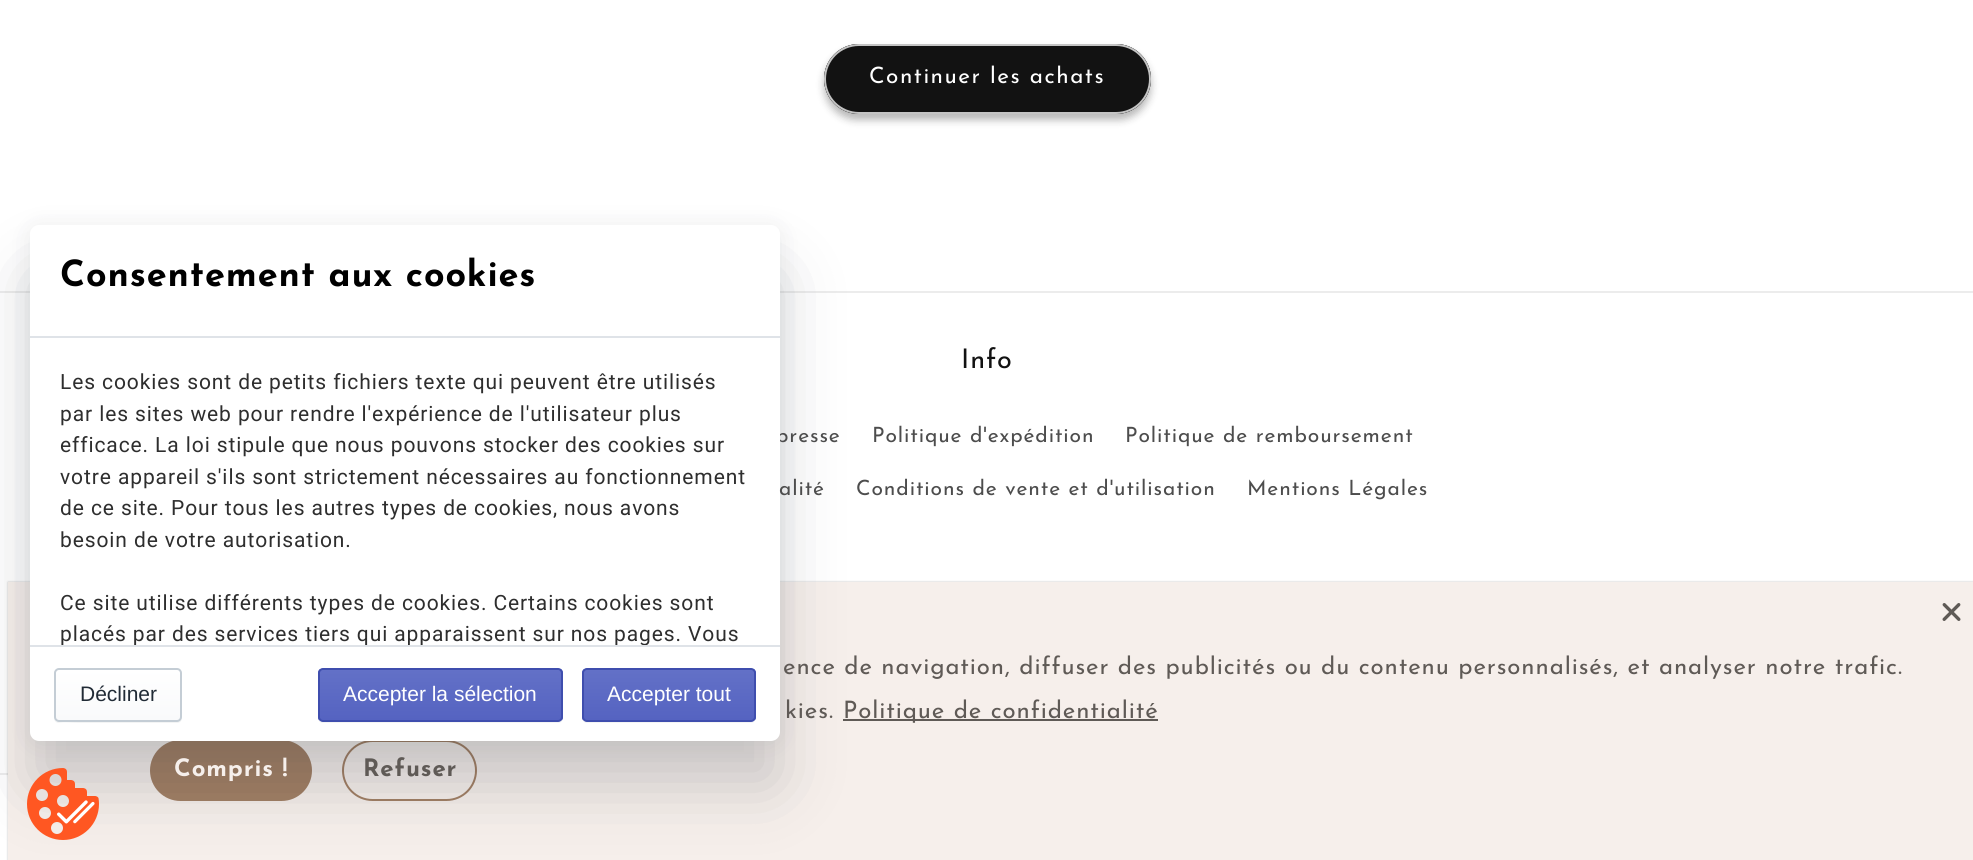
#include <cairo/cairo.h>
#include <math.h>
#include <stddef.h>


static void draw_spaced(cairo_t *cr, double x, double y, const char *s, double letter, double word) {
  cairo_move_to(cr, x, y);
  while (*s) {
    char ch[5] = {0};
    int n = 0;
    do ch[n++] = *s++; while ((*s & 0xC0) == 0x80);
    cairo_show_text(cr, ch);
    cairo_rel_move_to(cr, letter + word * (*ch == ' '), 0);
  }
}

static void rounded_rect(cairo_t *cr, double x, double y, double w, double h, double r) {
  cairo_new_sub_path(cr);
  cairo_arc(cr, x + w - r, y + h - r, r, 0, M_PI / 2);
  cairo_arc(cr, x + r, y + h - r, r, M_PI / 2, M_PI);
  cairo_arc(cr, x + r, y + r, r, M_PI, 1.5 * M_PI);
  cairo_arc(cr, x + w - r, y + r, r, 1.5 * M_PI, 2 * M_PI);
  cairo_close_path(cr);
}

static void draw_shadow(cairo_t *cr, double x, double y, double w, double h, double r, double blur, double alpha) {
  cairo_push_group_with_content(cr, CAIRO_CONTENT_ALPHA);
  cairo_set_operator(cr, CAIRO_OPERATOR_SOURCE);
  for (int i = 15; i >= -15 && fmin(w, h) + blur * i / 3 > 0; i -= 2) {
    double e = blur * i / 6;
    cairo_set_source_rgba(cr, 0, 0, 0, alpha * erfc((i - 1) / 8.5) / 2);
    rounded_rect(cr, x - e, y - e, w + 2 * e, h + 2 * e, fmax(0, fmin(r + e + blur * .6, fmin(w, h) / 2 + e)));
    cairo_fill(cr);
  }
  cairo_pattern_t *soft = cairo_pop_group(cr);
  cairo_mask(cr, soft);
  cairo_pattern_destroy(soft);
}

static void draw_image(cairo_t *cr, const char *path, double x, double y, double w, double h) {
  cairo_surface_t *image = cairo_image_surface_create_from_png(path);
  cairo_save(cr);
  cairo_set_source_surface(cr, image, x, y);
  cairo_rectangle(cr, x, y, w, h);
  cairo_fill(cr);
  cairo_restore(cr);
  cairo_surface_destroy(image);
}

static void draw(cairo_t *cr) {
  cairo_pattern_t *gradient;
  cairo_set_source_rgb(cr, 1, 1, 1);
  cairo_paint(cr);
  cairo_set_source_rgb(cr, 18 / 255.0, 18 / 255.0, 18 / 255.0);
  draw_shadow(cr, 824, 50, 327, 70, 35, 4, 0.3);
  cairo_set_source_rgb(cr, 18 / 255.0, 18 / 255.0, 18 / 255.0);
  rounded_rect(cr, 824, 44, 327, 70, 35);
  cairo_fill(cr);
  rounded_rect(cr, 825, 45, 325, 68, 34);
  cairo_stroke(cr);
  rounded_rect(cr, 825, 45, 325, 68, 34);
  cairo_set_source_rgba(cr, 1, 1, 1, 0.75);
  cairo_stroke(cr);
  cairo_set_source_rgb(cr, 236 / 255.0, 236 / 255.0, 236 / 255.0);
  cairo_rectangle(cr, 0, 291, 1973, 2);
  cairo_fill(cr);
  cairo_rectangle(cr, 0, 773, 8, 2);
  cairo_fill(cr);
  cairo_set_source_rgb(cr, 0, 0, 0);
  draw_shadow(cr, 8, 582, 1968, 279, 0, 1, 0.25);
  cairo_set_source_rgb(cr, 246 / 255.0, 239 / 255.0, 235 / 255.0);
  cairo_rectangle(cr, 8, 582, 1965, 278);
  cairo_fill(cr);
  cairo_set_source_rgb(cr, 163 / 255.0, 128 / 255.0, 100 / 255.0);
  rounded_rect(cr, 150, 740, 162, 61, 30.5);
  cairo_fill(cr);
  rounded_rect(cr, 343, 741, 133, 59, 29.5);
  cairo_stroke(cr);
  cairo_set_source_rgb(cr, 32 / 255.0, 42 / 255.0, 54 / 255.0);
  draw_shadow(cr, 30, 228, 750, 516, 9, 12, 0.08);
  cairo_set_source_rgb(cr, 95 / 255.0, 90 / 255.0, 86 / 255.0);
  cairo_rectangle(cr, 843, 719, 315, 2);
  cairo_fill(cr);
  cairo_set_source_rgb(cr, 32 / 255.0, 42 / 255.0, 53 / 255.0);
  draw_shadow(cr, 30, 272, 750, 516, 9, 31, 0.2);
  draw_image(cr, "images/1.png", 27, 768, 72, 72);
  draw_image(cr, "images/2.png", 1942, 603, 19, 18);
  cairo_select_font_face(cr, "Josefin Sans", CAIRO_FONT_SLANT_NORMAL, CAIRO_FONT_WEIGHT_NORMAL);
  cairo_set_font_size(cr, 22.5);
  cairo_set_source_rgb(cr, 1, 1, 1);
  draw_spaced(cr, 869, 83, "Continuer les achats", 1.5, 0);
  cairo_set_font_size(cr, 27);
  cairo_set_source_rgb(cr, 18 / 255.0, 18 / 255.0, 18 / 255.0);
  draw_spaced(cr, 961, 368, "Info", 0.9, 0);
  cairo_set_font_size(cr, 21);
  cairo_set_source_rgb(cr, 77 / 255.0, 77 / 255.0, 77 / 255.0);
  draw_spaced(cr, 776, 442, "presse", 0.9, 0);
  cairo_set_source_rgb(cr, 1, 1, 1);
  rounded_rect(cr, 30, 225, 750, 516, 9);
  cairo_fill(cr);
  cairo_set_source_rgb(cr, 243 / 255.0, 244 / 255.0, 244 / 255.0);
  cairo_new_path(cr);
  cairo_move_to(cr, 582, 717);
  cairo_curve_to(cr, 582, 720, 583, 722, 586, 723);
  cairo_line_to(cr, 751, 723);
  cairo_curve_to(cr, 754, 723, 756, 720, 756, 717);
  cairo_line_to(cr, 755, 720);
  cairo_line_to(cr, 752, 722);
  cairo_line_to(cr, 586, 722);
  cairo_curve_to(cr, 584, 721, 582, 719, 582, 717);
  cairo_close_path(cr);
  cairo_fill(cr);
  cairo_save(cr);
  rounded_rect(cr, 582, 668, 174, 54, 5);
  cairo_clip(cr);
  gradient = cairo_pattern_create_linear(669, 669, 669, 720);
  cairo_pattern_add_color_stop_rgba(gradient, 0, 99 / 255.0, 113 / 255.0, 199 / 255.0, 1);
  cairo_pattern_add_color_stop_rgba(gradient, 1, 85 / 255.0, 99 / 255.0, 193 / 255.0, 1);
  cairo_set_source(cr, gradient);
  cairo_pattern_destroy(gradient);
  cairo_rectangle(cr, 582, 669, 174, 51);
  cairo_fill(cr);
  cairo_restore(cr);
  cairo_set_source_rgb(cr, 103 / 255.0, 116 / 255.0, 200 / 255.0);
  cairo_new_path(cr);
  cairo_move_to(cr, 586, 670);
  cairo_line_to(cr, 724, 670);
  cairo_curve_to(cr, 757, 670, 754, 663, 754, 689);
  cairo_line_to(cr, 754, 719);
  cairo_curve_to(cr, 755, 719, 755, 718, 755, 717);
  cairo_line_to(cr, 755, 672);
  cairo_curve_to(cr, 755, 670, 754, 669, 752, 669);
  cairo_line_to(cr, 587, 669);
  cairo_curve_to(cr, 585, 669, 584, 670, 584, 672);
  cairo_line_to(cr, 584, 674);
  cairo_curve_to(cr, 584, 672, 585, 670, 586, 670);
  cairo_close_path(cr);
  cairo_fill(cr);
  rounded_rect(cr, 583, 669, 172, 52, 4);
  cairo_set_source_rgb(cr, 63 / 255.0, 78 / 255.0, 174 / 255.0);
  cairo_stroke(cr);
  cairo_select_font_face(cr, "Liberation Sans", CAIRO_FONT_SLANT_NORMAL, CAIRO_FONT_WEIGHT_NORMAL);
  cairo_set_source_rgb(cr, 1, 1, 1);
  cairo_move_to(cr, 607, 701);
  cairo_show_text(cr, "Accepter tout");
  cairo_set_source_rgb(cr, 243 / 255.0, 244 / 255.0, 244 / 255.0);
  cairo_new_path(cr);
  cairo_move_to(cr, 318, 717);
  cairo_line_to(cr, 318, 718);
  cairo_curve_to(cr, 318, 721, 320, 723, 323, 723);
  cairo_line_to(cr, 558, 723);
  cairo_curve_to(cr, 561, 723, 563, 721, 563, 718);
  cairo_line_to(cr, 563, 674);
  cairo_line_to(cr, 562, 672);
  cairo_line_to(cr, 562, 717);
  cairo_curve_to(cr, 562, 719, 560, 722, 558, 722);
  cairo_line_to(cr, 322, 722);
  cairo_curve_to(cr, 320, 722, 318, 719, 318, 717);
  cairo_close_path(cr);
  cairo_fill(cr);
  cairo_save(cr);
  rounded_rect(cr, 318, 668, 245, 54, 5);
  cairo_clip(cr);
  gradient = cairo_pattern_create_linear(440, 669, 440, 720);
  cairo_pattern_add_color_stop_rgba(gradient, 0, 99 / 255.0, 113 / 255.0, 199 / 255.0, 1);
  cairo_pattern_add_color_stop_rgba(gradient, 1, 85 / 255.0, 99 / 255.0, 193 / 255.0, 1);
  cairo_set_source(cr, gradient);
  cairo_pattern_destroy(gradient);
  cairo_rectangle(cr, 318, 669, 245, 51);
  cairo_fill(cr);
  cairo_restore(cr);
  rounded_rect(cr, 319, 669, 243, 52, 4);
  cairo_set_source_rgb(cr, 63 / 255.0, 78 / 255.0, 174 / 255.0);
  cairo_stroke(cr);
  cairo_set_source_rgb(cr, 1, 1, 1);
  cairo_move_to(cr, 343, 701);
  cairo_show_text(cr, "Accepter la sélection");
  cairo_set_source_rgb(cr, 243 / 255.0, 244 / 255.0, 244 / 255.0);
  cairo_new_path(cr);
  cairo_move_to(cr, 54, 717);
  cairo_line_to(cr, 54, 718);
  cairo_curve_to(cr, 54, 721, 56, 723, 59, 723);
  cairo_line_to(cr, 177, 723);
  cairo_curve_to(cr, 180, 723, 182, 721, 182, 718);
  cairo_line_to(cr, 182, 674);
  cairo_line_to(cr, 181, 672);
  cairo_line_to(cr, 182, 710);
  cairo_curve_to(cr, 182, 713, 183, 721, 177, 722);
  cairo_line_to(cr, 78, 722);
  cairo_curve_to(cr, 69, 722, 54, 725, 54, 717);
  cairo_close_path(cr);
  cairo_fill(cr);
  cairo_save(cr);
  rounded_rect(cr, 54, 668, 128, 54, 5);
  cairo_clip(cr);
  gradient = cairo_pattern_create_linear(118, 669, 118, 720);
  cairo_pattern_add_color_stop_rgba(gradient, 0, 1, 1, 1, 1);
  cairo_pattern_add_color_stop_rgba(gradient, 1, 249 / 255.0, 250 / 255.0, 251 / 255.0, 1);
  cairo_set_source(cr, gradient);
  cairo_pattern_destroy(gradient);
  cairo_rectangle(cr, 54, 669, 128, 51);
  cairo_fill(cr);
  cairo_restore(cr);
  rounded_rect(cr, 55, 669, 126, 52, 4);
  cairo_set_source_rgb(cr, 196 / 255.0, 205 / 255.0, 213 / 255.0);
  cairo_stroke(cr);
  cairo_set_source_rgb(cr, 33 / 255.0, 43 / 255.0, 54 / 255.0);
  cairo_move_to(cr, 80, 701);
  cairo_show_text(cr, "Décliner");
  cairo_save(cr);
  cairo_rectangle(cr, 30, 338, 750, 307);
  cairo_clip(cr);
  cairo_select_font_face(cr, "Roboto", CAIRO_FONT_SLANT_NORMAL, CAIRO_FONT_WEIGHT_NORMAL);
  cairo_set_source_rgb(cr, 46 / 255.0, 46 / 255.0, 46 / 255.0);
  draw_spaced(cr, 60, 641, "placés par des services tiers qui apparaissent sur nos pages. Vous", 0.9, 0);
  cairo_restore(cr);
  cairo_select_font_face(cr, "Roboto", CAIRO_FONT_SLANT_NORMAL, CAIRO_FONT_WEIGHT_NORMAL);
  cairo_set_source_rgb(cr, 46 / 255.0, 46 / 255.0, 46 / 255.0);
  draw_spaced(cr, 60, 610, "Ce site utilise différents types de cookies. Certains cookies sont", 0.9, 0);
  draw_spaced(cr, 60, 547, "besoin de votre autorisation.", 0.9, 0);
  draw_spaced(cr, 60, 515, "de ce site. Pour tous les autres types de cookies, nous avons", 0.9, 0);
  draw_spaced(cr, 60, 484, "votre appareil s'ils sont strictement nécessaires au fonctionnement", 0.9, 0);
  draw_spaced(cr, 60, 452, "efficace. La loi stipule que nous pouvons stocker des cookies sur", 0.9, 0);
  draw_spaced(cr, 60, 421, "par les sites web pour rendre l'expérience de l'utilisateur plus", 0.9, 0);
  draw_spaced(cr, 60, 389, "Les cookies sont de petits fichiers texte qui peuvent être utilisés", 0.9, 0);
  cairo_set_source_rgb(cr, 223 / 255.0, 227 / 255.0, 232 / 255.0);
  cairo_rectangle(cr, 30, 645, 750, 2);
  cairo_fill(cr);
  cairo_select_font_face(cr, "Josefin Sans", CAIRO_FONT_SLANT_NORMAL, CAIRO_FONT_WEIGHT_BOLD);
  cairo_set_font_size(cr, 36);
  cairo_set_source_rgb(cr, 0, 0, 0);
  draw_spaced(cr, 60, 286, "Consentement aux cookies", 0.9, 0);
  cairo_set_source_rgb(cr, 223 / 255.0, 227 / 255.0, 232 / 255.0);
  cairo_rectangle(cr, 30, 336, 750, 2);
  cairo_fill(cr);
  cairo_select_font_face(cr, "Josefin Sans", CAIRO_FONT_SLANT_NORMAL, CAIRO_FONT_WEIGHT_NORMAL);
  cairo_set_font_size(cr, 21);
  cairo_set_source_rgb(cr, 77 / 255.0, 77 / 255.0, 77 / 255.0);
  draw_spaced(cr, 872, 442, "Politique d'expédition", 0.9, 0);
  draw_spaced(cr, 1125, 442, "Politique de remboursement", 0.9, 0);
  draw_spaced(cr, 779, 495, "alité", 0.9, 0);
  draw_spaced(cr, 856, 495, "Conditions de vente et d'utilisation", 0.9, 0);
  draw_spaced(cr, 1247, 495, "Mentions Légales", 0.9, 0);
  cairo_set_font_size(cr, 24);
  cairo_set_source_rgb(cr, 95 / 255.0, 90 / 255.0, 86 / 255.0);
  draw_spaced(cr, 783, 674, "ence de navigation, diffuser des publicités ou du contenu personnalisés, et analyser notre trafic.", 0.9, 0);
  draw_spaced(cr, 785, 718, "kies.", 0.9, 0);
  draw_spaced(cr, 843, 718, "Politique de confidentialité", 0.9, 0);
  cairo_select_font_face(cr, "Josefin Sans", CAIRO_FONT_SLANT_NORMAL, CAIRO_FONT_WEIGHT_BOLD);
  cairo_set_source_rgb(cr, 246 / 255.0, 239 / 255.0, 235 / 255.0);
  draw_spaced(cr, 174, 776, "Compris !", 0.9, 0);
  cairo_set_source_rgb(cr, 95 / 255.0, 90 / 255.0, 86 / 255.0);
  draw_spaced(cr, 363, 776, "Refuser", 0.9, 0);
}

int main(void) {
  cairo_surface_t *surface = cairo_image_surface_create(CAIRO_FORMAT_RGB24, 1973, 860);
  cairo_t *cr = cairo_create(surface);
  cairo_font_options_t *options = cairo_font_options_create();
  cairo_font_options_set_hint_metrics(options, CAIRO_HINT_METRICS_OFF);
  cairo_font_options_set_hint_style(options, CAIRO_HINT_STYLE_NONE);
  cairo_set_font_options(cr, options);
  cairo_set_miter_limit(cr, 4);
  draw(cr);
  cairo_surface_write_to_png(surface, "out.png");
  cairo_font_options_destroy(options);
  cairo_destroy(cr);
  cairo_surface_destroy(surface);
  return 0;
}
